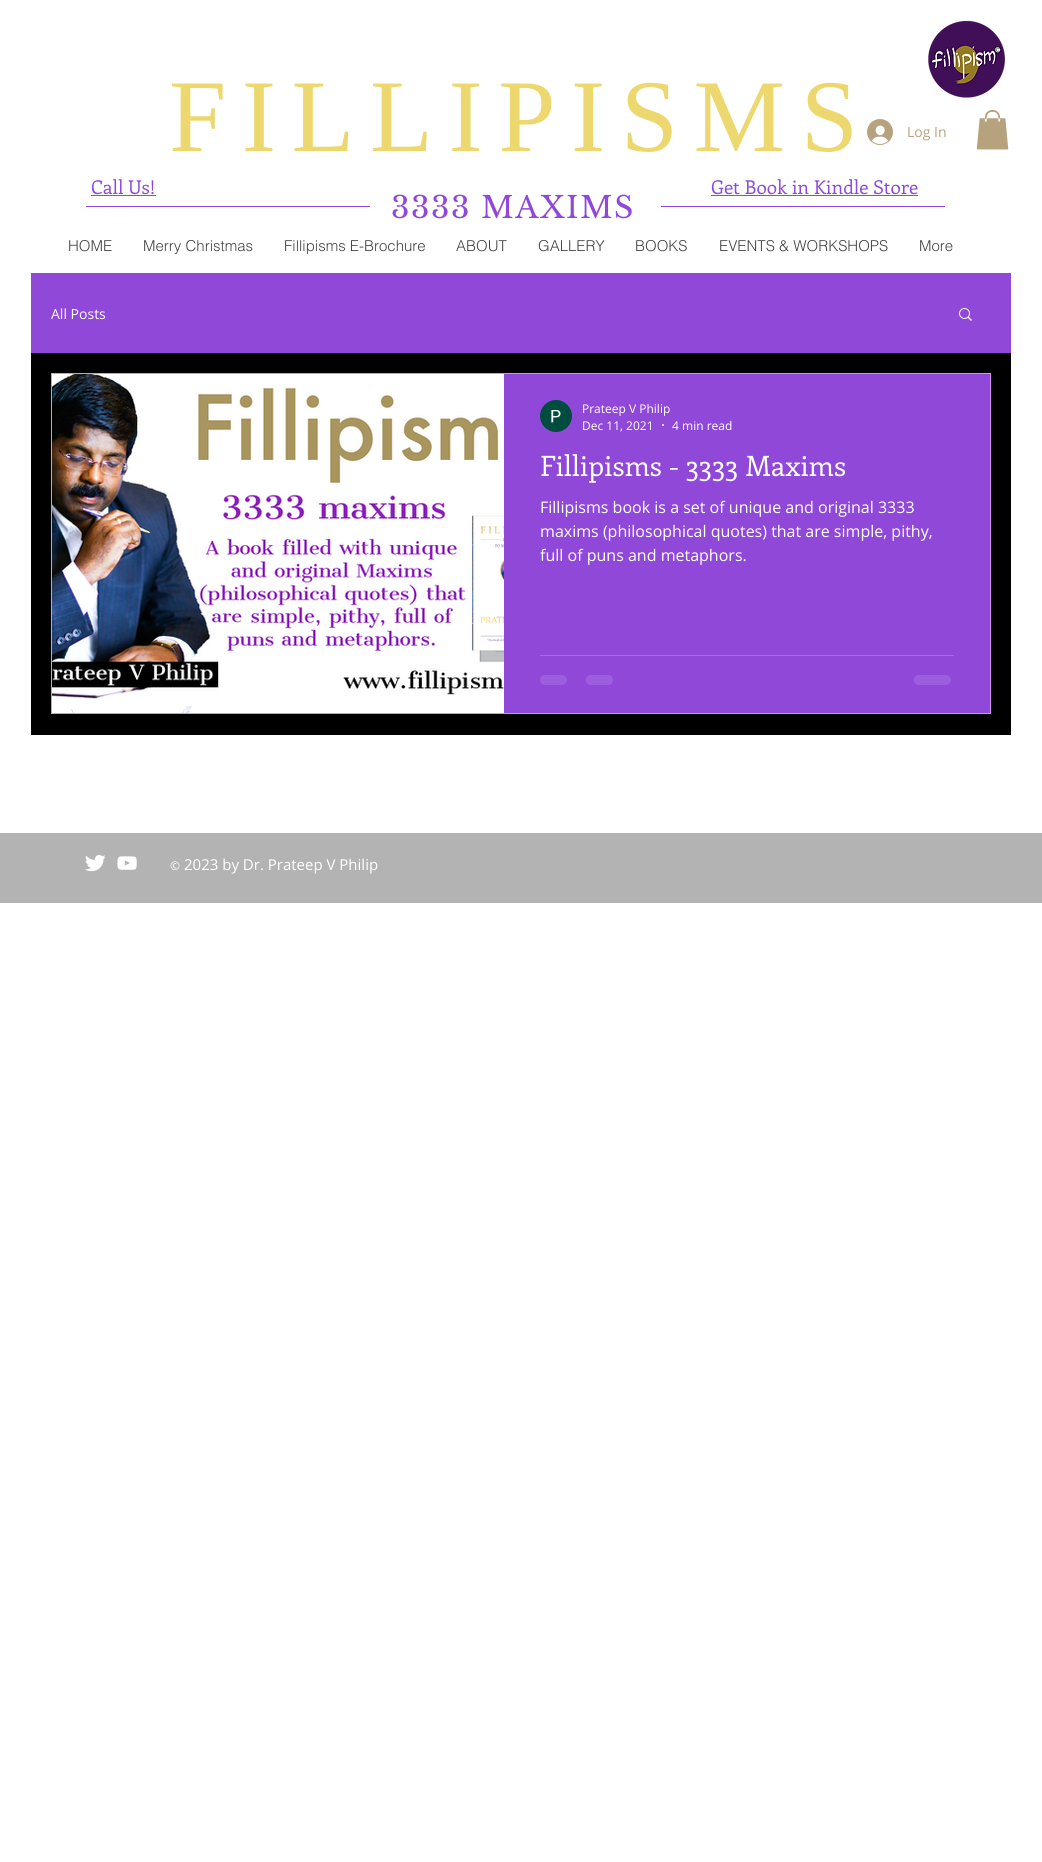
#include <cairo/cairo.h>
#include <math.h>
#include <stddef.h>


static void draw_spaced(cairo_t *cr, double x, double y, const char *s, double letter, double word) {
  cairo_move_to(cr, x, y);
  while (*s) {
    char ch[5] = {0};
    int n = 0;
    do ch[n++] = *s++; while ((*s & 0xC0) == 0x80);
    cairo_show_text(cr, ch);
    cairo_rel_move_to(cr, letter + word * (*ch == ' '), 0);
  }
}

static void rounded_rect(cairo_t *cr, double x, double y, double w, double h, double r) {
  cairo_new_sub_path(cr);
  cairo_arc(cr, x + w - r, y + h - r, r, 0, M_PI / 2);
  cairo_arc(cr, x + r, y + h - r, r, M_PI / 2, M_PI);
  cairo_arc(cr, x + r, y + r, r, M_PI, 1.5 * M_PI);
  cairo_arc(cr, x + w - r, y + r, r, 1.5 * M_PI, 2 * M_PI);
  cairo_close_path(cr);
}

static void draw_image(cairo_t *cr, const char *path, double x, double y, double w, double h) {
  cairo_surface_t *image = cairo_image_surface_create_from_png(path);
  cairo_save(cr);
  cairo_set_source_surface(cr, image, x, y);
  cairo_rectangle(cr, x, y, w, h);
  cairo_fill(cr);
  cairo_restore(cr);
  cairo_surface_destroy(image);
}

static void draw(cairo_t *cr) {
  cairo_set_source_rgb(cr, 1, 1, 1);
  cairo_paint(cr);
  draw_image(cr, "images/1.png", 928, 20, 78, 78);
  draw_image(cr, "images/2.png", 867, 119, 26, 26);
  draw_image(cr, "images/3.png", 976, 110, 33, 40);
  cairo_set_source_rgb(cr, 144 / 255.0, 72 / 255.0, 217 / 255.0);
  cairo_rectangle(cr, 91, 195, 65, 1);
  cairo_fill(cr);
  cairo_rectangle(cr, 711, 195, 207, 1);
  cairo_fill(cr);
  cairo_rectangle(cr, 86, 206, 284, 1);
  cairo_fill(cr);
  cairo_rectangle(cr, 661, 206, 284, 1);
  cairo_fill(cr);
  cairo_set_source_rgb(cr, 0, 0, 0);
  cairo_rectangle(cr, 31, 353, 980, 382);
  cairo_fill(cr);
  cairo_set_source_rgb(cr, 144 / 255.0, 72 / 255.0, 217 / 255.0);
  cairo_rectangle(cr, 31, 273, 980, 80);
  cairo_fill(cr);
  draw_image(cr, "images/4.png", 959, 308, 13, 13);
  cairo_rectangle(cr, 51.5, 373.5, 939, 340);
  cairo_set_source_rgb(cr, 212 / 255.0, 145 / 255.0, 237 / 255.0);
  cairo_set_line_width(cr, 1);
  cairo_stroke(cr);
  draw_image(cr, "images/5.png", 52, 374, 452, 339);
  cairo_set_source_rgb(cr, 144 / 255.0, 72 / 255.0, 217 / 255.0);
  cairo_rectangle(cr, 504, 374, 486, 339);
  cairo_fill(cr);
  draw_image(cr, "images/6.png", 540, 400, 32, 32);
  cairo_set_source_rgb(cr, 1, 1, 1);
  cairo_arc(cr, 663, 425, 1, 0, 2 * M_PI);
  cairo_fill(cr);
  cairo_set_source_rgb(cr, 166 / 255.0, 109 / 255.0, 225 / 255.0);
  cairo_rectangle(cr, 540, 655, 414, 1);
  cairo_fill(cr);
  cairo_set_source_rgb(cr, 157 / 255.0, 94 / 255.0, 222 / 255.0);
  rounded_rect(cr, 540, 675, 27, 10, 5);
  cairo_fill(cr);
  rounded_rect(cr, 586, 675, 27, 10, 5);
  cairo_fill(cr);
  rounded_rect(cr, 914, 675, 37, 10, 5);
  cairo_fill(cr);
  cairo_set_source_rgb(cr, 179 / 255.0, 179 / 255.0, 179 / 255.0);
  cairo_rectangle(cr, 0, 833, 1042, 70);
  cairo_fill(cr);
  draw_image(cr, "images/7.png", 85, 854, 21, 18);
  draw_image(cr, "images/8.png", 117, 856, 20, 14);
  cairo_select_font_face(cr, "Liberation Serif", CAIRO_FONT_SLANT_NORMAL, CAIRO_FONT_WEIGHT_NORMAL);
  cairo_set_font_size(cr, 103);
  cairo_set_source_rgb(cr, 237 / 255.0, 216 / 255.0, 111 / 255.0);
  draw_spaced(cr, 169, 151, "FILLIPISMS", 15.5, 0);
  cairo_select_font_face(cr, "Open Sans", CAIRO_FONT_SLANT_NORMAL, CAIRO_FONT_WEIGHT_NORMAL);
  cairo_set_font_size(cr, 14);
  cairo_set_source_rgb(cr, 183 / 255.0, 162 / 255.0, 126 / 255.0);
  cairo_move_to(cr, 907, 137);
  cairo_show_text(cr, "Log In");
  cairo_select_font_face(cr, "Enriqueta", CAIRO_FONT_SLANT_NORMAL, CAIRO_FONT_WEIGHT_NORMAL);
  cairo_set_font_size(cr, 19);
  cairo_set_source_rgb(cr, 144 / 255.0, 72 / 255.0, 217 / 255.0);
  cairo_move_to(cr, 91, 194);
  cairo_show_text(cr, "Call Us!");
  cairo_move_to(cr, 711, 194);
  cairo_show_text(cr, "Get Book in Kindle Store");
  cairo_select_font_face(cr, "Libre Baskerville", CAIRO_FONT_SLANT_NORMAL, CAIRO_FONT_WEIGHT_NORMAL);
  cairo_set_font_size(cr, 30);
  draw_spaced(cr, 391, 218, "3333 MAXIMS", 1.5, 0);
  cairo_select_font_face(cr, "helvetica Light", CAIRO_FONT_SLANT_NORMAL, CAIRO_FONT_WEIGHT_NORMAL);
  cairo_set_font_size(cr, 15);
  cairo_set_source_rgb(cr, 68 / 255.0, 68 / 255.0, 68 / 255.0);
  cairo_move_to(cr, 68, 251);
  cairo_show_text(cr, "HOME");
  cairo_move_to(cr, 143, 251);
  cairo_show_text(cr, "Merry Christmas");
  cairo_move_to(cr, 284, 251);
  cairo_show_text(cr, "Fillipisms E-Brochure");
  cairo_move_to(cr, 456, 251);
  cairo_show_text(cr, "ABOUT");
  cairo_move_to(cr, 538, 251);
  cairo_show_text(cr, "GALLERY");
  cairo_move_to(cr, 635, 251);
  cairo_show_text(cr, "BOOKS");
  cairo_move_to(cr, 719, 251);
  cairo_show_text(cr, "EVENTS & WORKSHOPS");
  cairo_move_to(cr, 919, 251);
  cairo_show_text(cr, "More");
  cairo_select_font_face(cr, "Open Sans", CAIRO_FONT_SLANT_NORMAL, CAIRO_FONT_WEIGHT_NORMAL);
  cairo_set_font_size(cr, 14);
  cairo_set_source_rgb(cr, 1, 1, 1);
  cairo_move_to(cr, 51, 319);
  cairo_show_text(cr, "All Posts");
  cairo_set_font_size(cr, 12);
  cairo_move_to(cr, 582, 413);
  cairo_show_text(cr, "Prateep V Philip");
  cairo_move_to(cr, 582, 430);
  cairo_show_text(cr, "Dec 11, 2021");
  cairo_move_to(cr, 672, 430);
  cairo_show_text(cr, "4 min read");
  cairo_select_font_face(cr, "Enriqueta", CAIRO_FONT_SLANT_NORMAL, CAIRO_FONT_WEIGHT_NORMAL);
  cairo_set_font_size(cr, 28);
  cairo_move_to(cr, 540, 476);
  cairo_show_text(cr, "Fillipisms - 3333 Maxims");
  cairo_select_font_face(cr, "Open Sans", CAIRO_FONT_SLANT_NORMAL, CAIRO_FONT_WEIGHT_NORMAL);
  cairo_set_font_size(cr, 16);
  cairo_move_to(cr, 540, 513);
  cairo_show_text(cr, "Fillipisms book is a set of unique and original 3333");
  cairo_move_to(cr, 540, 537);
  cairo_show_text(cr, "maxims (philosophical quotes) that are simple, pithy,");
  cairo_move_to(cr, 540, 561);
  cairo_show_text(cr, "full of puns and metaphors.");
  cairo_set_font_size(cr, 12);
  cairo_move_to(cr, 170, 870);
  cairo_show_text(cr, "©");
  cairo_set_font_size(cr, 15);
  cairo_move_to(cr, 184, 870);
  cairo_show_text(cr, "2023 by Dr. Prateep V Philip");
}

int main(void) {
  cairo_surface_t *surface = cairo_image_surface_create(CAIRO_FORMAT_RGB24, 1042, 1862);
  cairo_t *cr = cairo_create(surface);
  cairo_font_options_t *options = cairo_font_options_create();
  cairo_font_options_set_hint_metrics(options, CAIRO_HINT_METRICS_OFF);
  cairo_font_options_set_hint_style(options, CAIRO_HINT_STYLE_NONE);
  cairo_set_font_options(cr, options);
  cairo_set_miter_limit(cr, 4);
  draw(cr);
  cairo_surface_write_to_png(surface, "out.png");
  cairo_font_options_destroy(options);
  cairo_destroy(cr);
  cairo_surface_destroy(surface);
  return 0;
}
